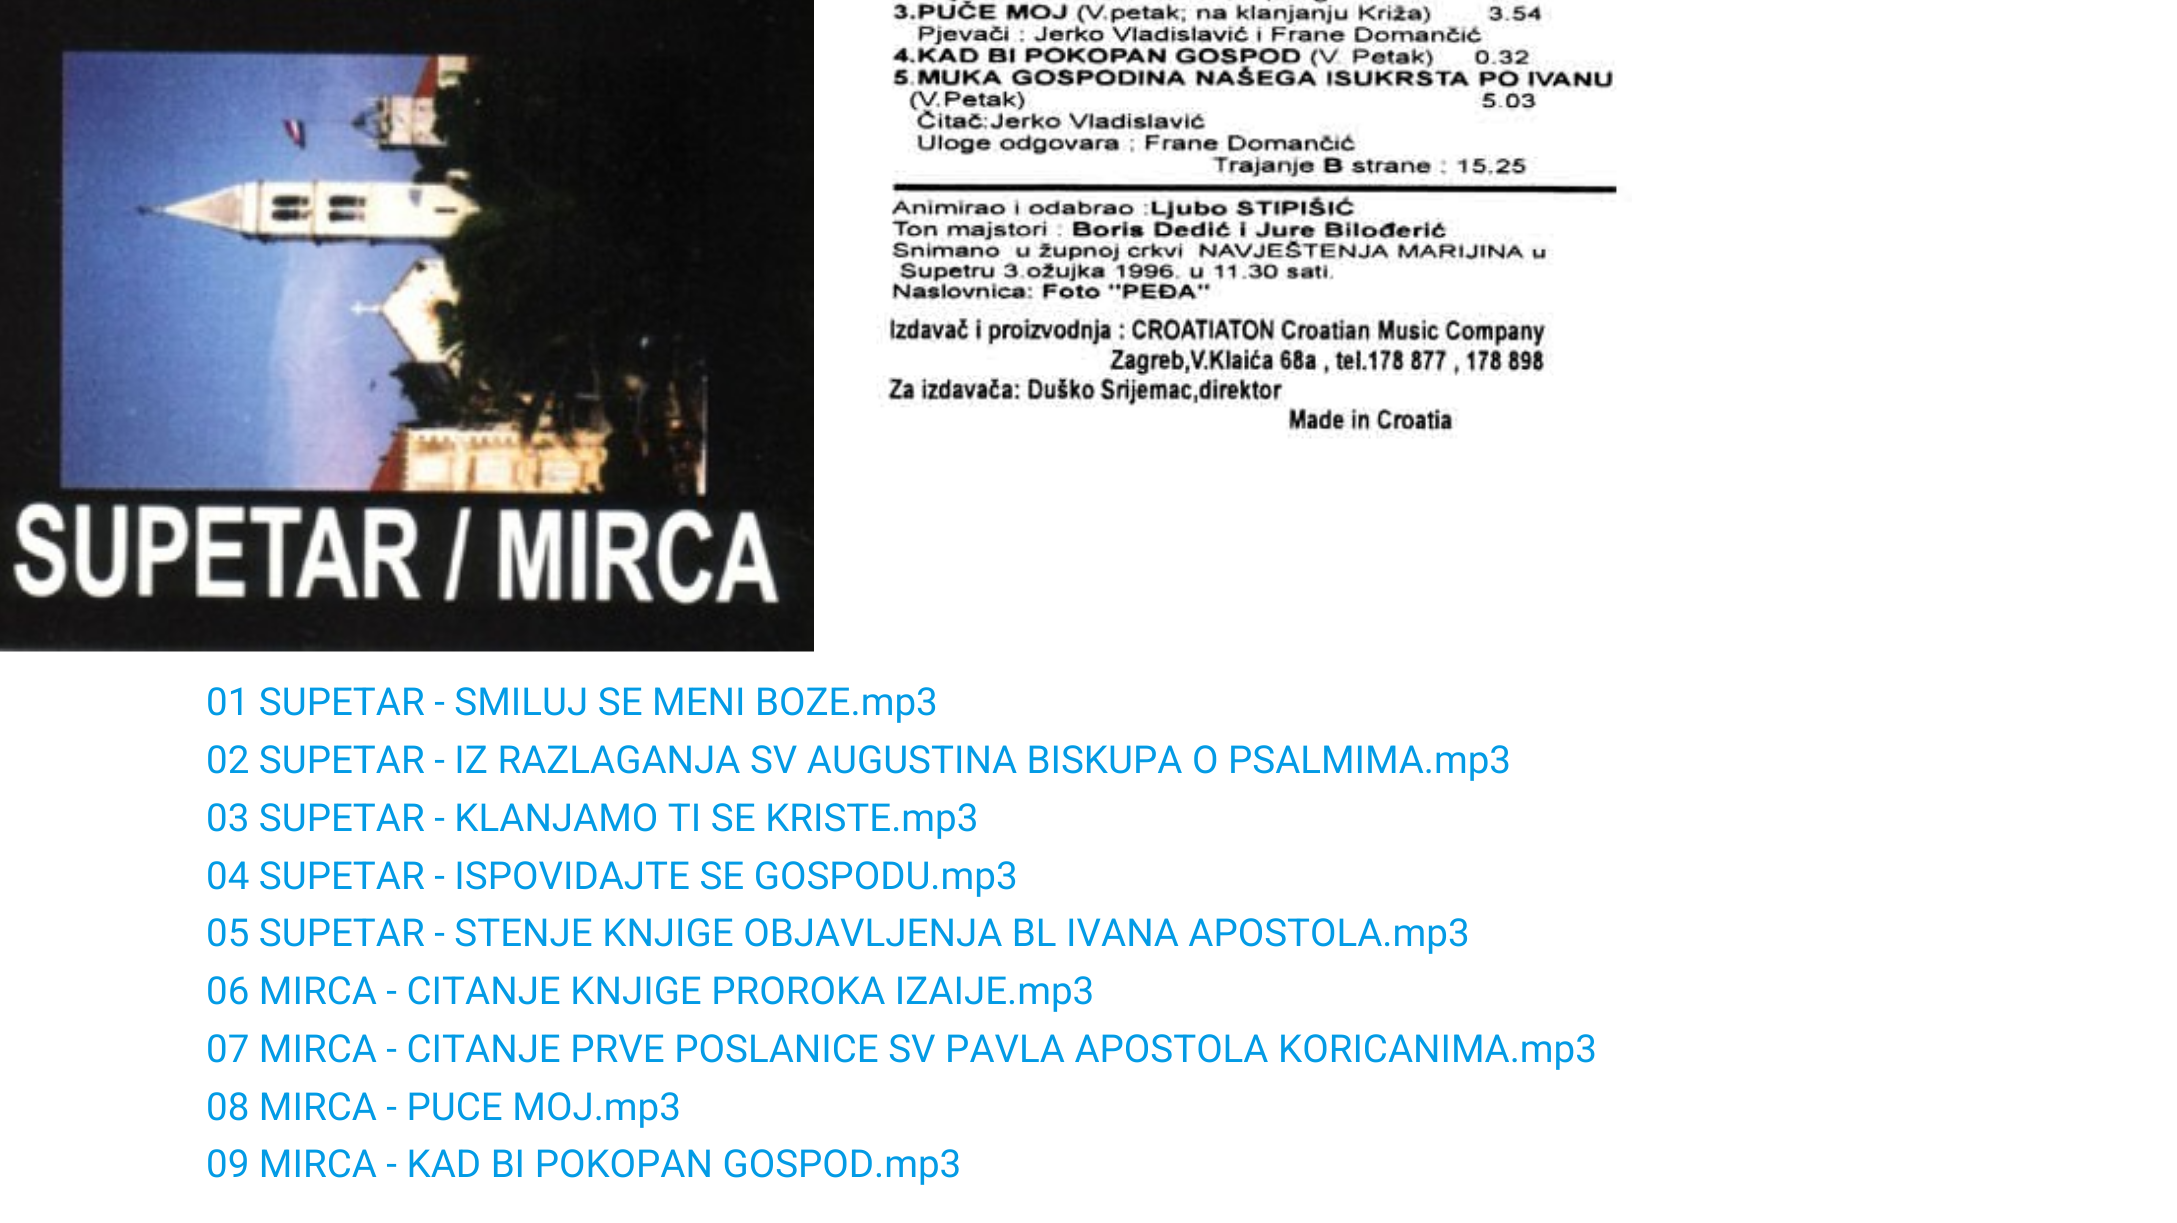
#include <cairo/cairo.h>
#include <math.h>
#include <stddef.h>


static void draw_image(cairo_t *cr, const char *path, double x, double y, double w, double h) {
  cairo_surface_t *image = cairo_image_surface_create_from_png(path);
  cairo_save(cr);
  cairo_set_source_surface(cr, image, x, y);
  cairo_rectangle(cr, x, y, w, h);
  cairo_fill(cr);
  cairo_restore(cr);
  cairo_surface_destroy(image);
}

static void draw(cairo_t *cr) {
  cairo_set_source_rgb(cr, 1, 1, 1);
  cairo_paint(cr);
  draw_image(cr, "images/1.png", 0, 0, 814, 652);
  draw_image(cr, "images/2.png", 876, 0, 756, 439);
  cairo_select_font_face(cr, "Roboto", CAIRO_FONT_SLANT_NORMAL, CAIRO_FONT_WEIGHT_NORMAL);
  cairo_set_font_size(cr, 38.5);
  cairo_set_source_rgb(cr, 3 / 255.0, 155 / 255.0, 229 / 255.0);
  cairo_move_to(cr, 206, 715);
  cairo_show_text(cr, "01 SUPETAR - SMILUJ SE MENI BOZE.mp3");
  cairo_move_to(cr, 206, 773);
  cairo_show_text(cr, "02 SUPETAR - IZ RAZLAGANJA SV AUGUSTINA BISKUPA O PSALMIMA.mp3");
  cairo_move_to(cr, 206, 831);
  cairo_show_text(cr, "03 SUPETAR - KLANJAMO TI SE KRISTE.mp3");
  cairo_move_to(cr, 206, 889);
  cairo_show_text(cr, "04 SUPETAR - ISPOVIDAJTE SE GOSPODU.mp3");
  cairo_move_to(cr, 206, 946);
  cairo_show_text(cr, "05 SUPETAR - STENJE KNJIGE OBJAVLJENJA BL IVANA APOSTOLA.mp3");
  cairo_move_to(cr, 206, 1004);
  cairo_show_text(cr, "06 MIRCA - CITANJE KNJIGE PROROKA IZAIJE.mp3");
  cairo_move_to(cr, 206, 1062);
  cairo_show_text(cr, "07 MIRCA - CITANJE PRVE POSLANICE SV PAVLA APOSTOLA KORICANIMA.mp3");
  cairo_move_to(cr, 206, 1120);
  cairo_show_text(cr, "08 MIRCA - PUCE MOJ.mp3");
  cairo_move_to(cr, 206, 1177);
  cairo_show_text(cr, "09 MIRCA - KAD BI POKOPAN GOSPOD.mp3");
}

int main(void) {
  cairo_surface_t *surface = cairo_image_surface_create(CAIRO_FORMAT_RGB24, 2177, 1223);
  cairo_t *cr = cairo_create(surface);
  cairo_font_options_t *options = cairo_font_options_create();
  cairo_font_options_set_hint_metrics(options, CAIRO_HINT_METRICS_OFF);
  cairo_font_options_set_hint_style(options, CAIRO_HINT_STYLE_NONE);
  cairo_set_font_options(cr, options);
  cairo_set_miter_limit(cr, 4);
  draw(cr);
  cairo_surface_write_to_png(surface, "out.png");
  cairo_font_options_destroy(options);
  cairo_destroy(cr);
  cairo_surface_destroy(surface);
  return 0;
}
